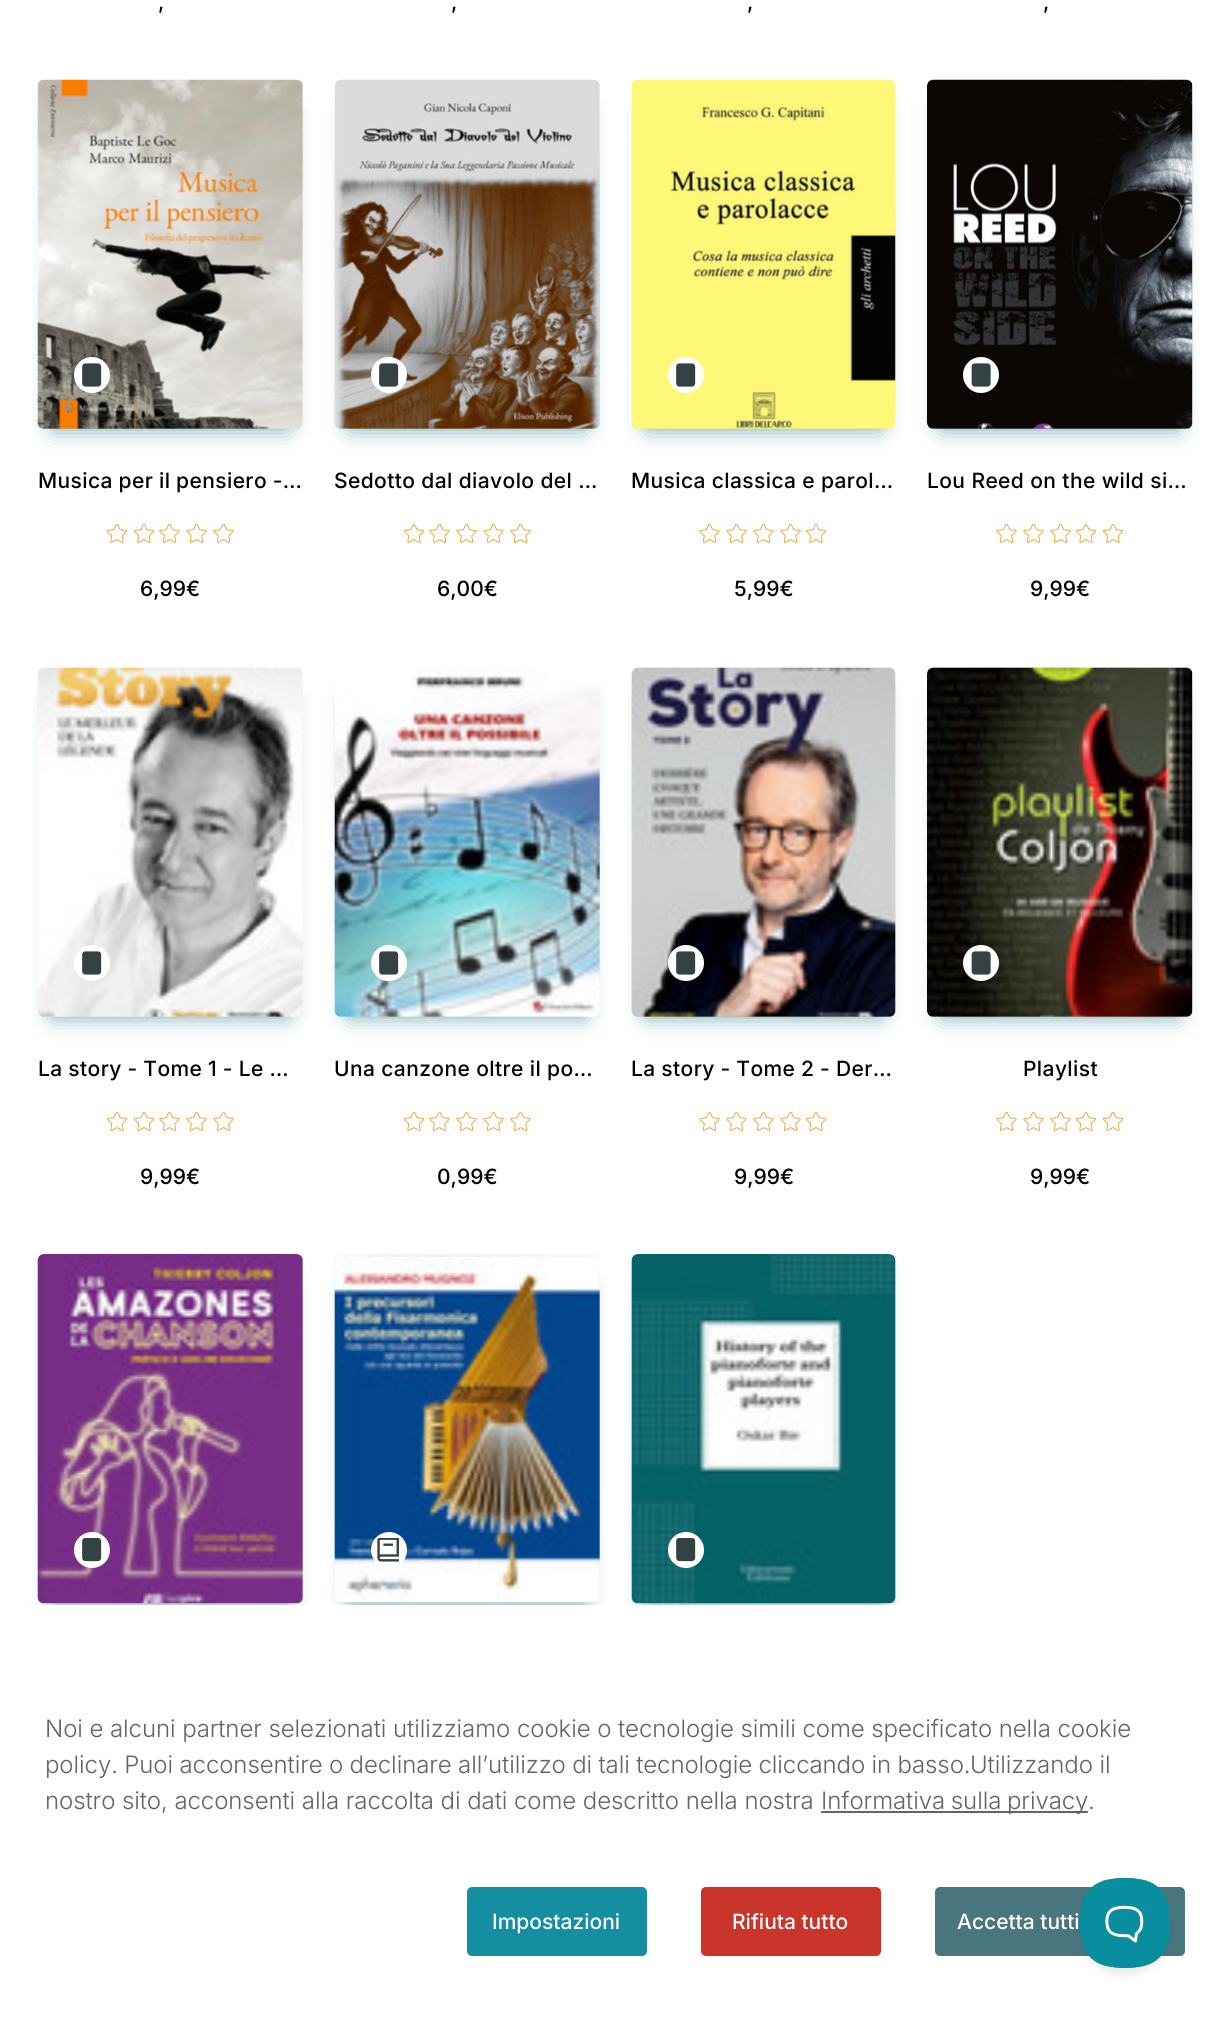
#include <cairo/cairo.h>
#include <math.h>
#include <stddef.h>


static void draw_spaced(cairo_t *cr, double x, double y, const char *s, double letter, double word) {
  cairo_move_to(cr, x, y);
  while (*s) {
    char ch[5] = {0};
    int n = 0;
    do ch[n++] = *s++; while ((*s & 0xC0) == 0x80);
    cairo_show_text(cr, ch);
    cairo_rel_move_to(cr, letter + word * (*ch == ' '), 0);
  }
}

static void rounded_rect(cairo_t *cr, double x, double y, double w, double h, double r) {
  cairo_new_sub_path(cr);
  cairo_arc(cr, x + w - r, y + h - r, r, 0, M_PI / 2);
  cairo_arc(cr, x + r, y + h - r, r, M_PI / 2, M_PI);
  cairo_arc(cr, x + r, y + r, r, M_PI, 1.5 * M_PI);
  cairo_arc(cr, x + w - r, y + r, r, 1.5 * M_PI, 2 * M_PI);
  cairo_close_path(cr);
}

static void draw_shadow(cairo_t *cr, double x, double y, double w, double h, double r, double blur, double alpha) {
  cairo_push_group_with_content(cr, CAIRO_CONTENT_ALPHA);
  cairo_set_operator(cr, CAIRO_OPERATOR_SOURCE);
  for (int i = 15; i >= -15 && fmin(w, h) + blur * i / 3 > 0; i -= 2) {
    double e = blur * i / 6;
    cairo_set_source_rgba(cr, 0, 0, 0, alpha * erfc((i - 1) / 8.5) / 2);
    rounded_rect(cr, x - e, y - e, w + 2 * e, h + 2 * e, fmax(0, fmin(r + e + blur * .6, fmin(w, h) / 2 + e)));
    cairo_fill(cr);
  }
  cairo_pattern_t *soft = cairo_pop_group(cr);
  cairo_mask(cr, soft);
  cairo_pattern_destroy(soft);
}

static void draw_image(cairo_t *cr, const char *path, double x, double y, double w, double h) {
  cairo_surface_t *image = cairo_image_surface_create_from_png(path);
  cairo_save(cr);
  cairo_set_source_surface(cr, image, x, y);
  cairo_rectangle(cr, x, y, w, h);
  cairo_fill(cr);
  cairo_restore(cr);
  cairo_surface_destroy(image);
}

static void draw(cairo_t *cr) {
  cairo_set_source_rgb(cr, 1, 1, 1);
  cairo_paint(cr);
  cairo_set_source_rgb(cr, 8 / 255.0, 104 / 255.0, 118 / 255.0);
  draw_shadow(cr, 53, 110, 235, 319, 0, 11, 0.57);
  draw_image(cr, "images/2.png", 38, 80, 265, 349);
  draw_image(cr, "images/1.png", 37, 79, 266, 350);
  cairo_set_source_rgb(cr, 1, 1, 1);
  cairo_arc(cr, 92, 375, 18, 0, 2 * M_PI);
  cairo_fill(cr);
  draw_image(cr, "images/3.png", 82, 363, 20, 24);
  draw_image(cr, "images/4.png", 107, 524, 21, 19);
  draw_image(cr, "images/4.png", 134, 524, 21, 19);
  draw_image(cr, "images/5.png", 159, 524, 21, 19);
  draw_image(cr, "images/5.png", 186, 524, 21, 19);
  draw_image(cr, "images/5.png", 213, 524, 21, 19);
  cairo_set_source_rgb(cr, 8 / 255.0, 104 / 255.0, 118 / 255.0);
  draw_shadow(cr, 350, 110, 235, 319, 0, 11, 0.57);
  draw_image(cr, "images/7.png", 334, 80, 266, 349);
  draw_image(cr, "images/6.png", 334, 79, 266, 350);
  cairo_set_source_rgb(cr, 1, 1, 1);
  cairo_arc(cr, 389, 375, 18, 0, 2 * M_PI);
  cairo_fill(cr);
  draw_image(cr, "images/3.png", 379, 363, 20, 24);
  draw_image(cr, "images/4.png", 404, 524, 21, 19);
  draw_image(cr, "images/5.png", 429, 524, 21, 19);
  draw_image(cr, "images/5.png", 456, 524, 21, 19);
  draw_image(cr, "images/5.png", 483, 524, 21, 19);
  draw_image(cr, "images/5.png", 510, 524, 21, 19);
  cairo_set_source_rgb(cr, 8 / 255.0, 104 / 255.0, 118 / 255.0);
  draw_shadow(cr, 647, 110, 234, 319, 0, 11, 0.57);
  draw_image(cr, "images/9.png", 631, 80, 265, 349);
  draw_image(cr, "images/8.png", 631, 79, 265, 350);
  cairo_set_source_rgb(cr, 1, 1, 1);
  cairo_arc(cr, 686, 375, 18, 0, 2 * M_PI);
  cairo_fill(cr);
  draw_image(cr, "images/3.png", 676, 363, 20, 24);
  draw_image(cr, "images/5.png", 699, 524, 21, 19);
  draw_image(cr, "images/5.png", 726, 524, 21, 19);
  draw_image(cr, "images/5.png", 753, 524, 21, 19);
  draw_image(cr, "images/5.png", 780, 524, 21, 19);
  draw_image(cr, "images/4.png", 806, 524, 21, 19);
  cairo_set_source_rgb(cr, 8 / 255.0, 104 / 255.0, 118 / 255.0);
  draw_shadow(cr, 942, 110, 236, 319, 0, 11, 0.57);
  draw_image(cr, "images/11.png", 927, 80, 266, 349);
  draw_image(cr, "images/10.png", 927, 79, 266, 350);
  cairo_set_source_rgb(cr, 1, 1, 1);
  cairo_arc(cr, 981, 375, 18, 0, 2 * M_PI);
  cairo_fill(cr);
  draw_image(cr, "images/12.png", 971, 363, 20, 24);
  draw_image(cr, "images/5.png", 996, 524, 21, 19);
  draw_image(cr, "images/5.png", 1023, 524, 21, 19);
  draw_image(cr, "images/5.png", 1050, 524, 21, 19);
  draw_image(cr, "images/4.png", 1076, 524, 21, 19);
  draw_image(cr, "images/4.png", 1103, 524, 21, 19);
  cairo_set_source_rgb(cr, 8 / 255.0, 104 / 255.0, 118 / 255.0);
  draw_shadow(cr, 53, 698, 235, 319, 0, 11, 0.57);
  draw_image(cr, "images/14.png", 38, 667, 265, 350);
  draw_image(cr, "images/13.png", 37, 667, 266, 350);
  cairo_set_source_rgb(cr, 1, 1, 1);
  cairo_arc(cr, 92, 963, 18, 0, 2 * M_PI);
  cairo_fill(cr);
  draw_image(cr, "images/3.png", 82, 951, 20, 24);
  draw_image(cr, "images/4.png", 107, 1112, 21, 19);
  draw_image(cr, "images/4.png", 134, 1112, 21, 19);
  draw_image(cr, "images/5.png", 159, 1112, 21, 19);
  draw_image(cr, "images/5.png", 186, 1112, 21, 19);
  draw_image(cr, "images/5.png", 213, 1112, 21, 19);
  cairo_set_source_rgb(cr, 8 / 255.0, 104 / 255.0, 118 / 255.0);
  draw_shadow(cr, 350, 698, 235, 319, 0, 11, 0.57);
  draw_image(cr, "images/15.png", 334, 668, 266, 349);
  draw_image(cr, "images/16.png", 334, 668, 266, 349);
  cairo_set_source_rgb(cr, 1, 1, 1);
  cairo_arc(cr, 389, 963, 18, 0, 2 * M_PI);
  cairo_fill(cr);
  draw_image(cr, "images/3.png", 379, 951, 20, 24);
  draw_image(cr, "images/4.png", 404, 1112, 21, 19);
  draw_image(cr, "images/5.png", 429, 1112, 21, 19);
  draw_image(cr, "images/5.png", 456, 1112, 21, 19);
  draw_image(cr, "images/5.png", 483, 1112, 21, 19);
  draw_image(cr, "images/5.png", 510, 1112, 21, 19);
  cairo_set_source_rgb(cr, 8 / 255.0, 104 / 255.0, 118 / 255.0);
  draw_shadow(cr, 647, 698, 234, 319, 0, 11, 0.57);
  draw_image(cr, "images/17.png", 631, 667, 265, 350);
  draw_image(cr, "images/18.png", 631, 667, 265, 350);
  cairo_set_source_rgb(cr, 1, 1, 1);
  cairo_arc(cr, 686, 963, 18, 0, 2 * M_PI);
  cairo_fill(cr);
  draw_image(cr, "images/3.png", 676, 951, 20, 24);
  draw_image(cr, "images/5.png", 699, 1112, 21, 19);
  draw_image(cr, "images/5.png", 726, 1112, 21, 19);
  draw_image(cr, "images/5.png", 753, 1112, 21, 19);
  draw_image(cr, "images/5.png", 780, 1112, 21, 19);
  draw_image(cr, "images/4.png", 806, 1112, 21, 19);
  cairo_set_source_rgb(cr, 8 / 255.0, 104 / 255.0, 118 / 255.0);
  draw_shadow(cr, 942, 698, 236, 319, 0, 11, 0.57);
  draw_image(cr, "images/19.png", 927, 667, 266, 350);
  draw_image(cr, "images/20.png", 927, 667, 266, 350);
  cairo_set_source_rgb(cr, 1, 1, 1);
  cairo_arc(cr, 981, 963, 18, 0, 2 * M_PI);
  cairo_fill(cr);
  draw_image(cr, "images/12.png", 971, 951, 20, 24);
  draw_image(cr, "images/5.png", 996, 1112, 21, 19);
  draw_image(cr, "images/5.png", 1023, 1112, 21, 19);
  draw_image(cr, "images/5.png", 1050, 1112, 21, 19);
  draw_image(cr, "images/4.png", 1076, 1112, 21, 19);
  draw_image(cr, "images/4.png", 1103, 1112, 21, 19);
  cairo_set_source_rgb(cr, 8 / 255.0, 104 / 255.0, 118 / 255.0);
  draw_shadow(cr, 53, 1284, 235, 320, 0, 11, 0.57);
  draw_image(cr, "images/22.png", 38, 1254, 265, 350);
  draw_image(cr, "images/21.png", 37, 1254, 266, 350);
  cairo_set_source_rgb(cr, 1, 1, 1);
  cairo_arc(cr, 92, 1550, 18, 0, 2 * M_PI);
  cairo_fill(cr);
  draw_image(cr, "images/23.png", 82, 1538, 20, 24);
  cairo_set_source_rgb(cr, 8 / 255.0, 104 / 255.0, 118 / 255.0);
  draw_shadow(cr, 350, 1284, 235, 320, 0, 11, 0.57);
  draw_image(cr, "images/24.png", 334, 1254, 266, 349);
  draw_image(cr, "images/25.png", 334, 1257, 266, 345);
  cairo_set_source_rgb(cr, 1, 1, 1);
  cairo_arc(cr, 389, 1550, 18, 0, 2 * M_PI);
  cairo_fill(cr);
  draw_image(cr, "images/26.png", 377, 1538, 22, 24);
  cairo_set_source_rgb(cr, 8 / 255.0, 104 / 255.0, 118 / 255.0);
  draw_shadow(cr, 647, 1284, 234, 320, 0, 11, 0.57);
  draw_image(cr, "images/27.png", 631, 1254, 265, 350);
  draw_image(cr, "images/28.png", 631, 1254, 265, 350);
  cairo_set_source_rgb(cr, 1, 1, 1);
  cairo_arc(cr, 686, 1550, 18, 0, 2 * M_PI);
  cairo_fill(cr);
  draw_image(cr, "images/23.png", 676, 1538, 20, 24);
  rounded_rect(cr, 0, 1605, 1230, 408, 6);
  cairo_fill(cr);
  cairo_set_source_rgb(cr, 93 / 255.0, 100 / 255.0, 109 / 255.0);
  cairo_rectangle(cr, 821, 1811, 267, 2);
  cairo_fill(cr);
  cairo_set_source_rgb(cr, 20 / 255.0, 142 / 255.0, 160 / 255.0);
  rounded_rect(cr, 467, 1887, 180, 69, 5);
  cairo_fill(cr);
  cairo_set_source_rgb(cr, 202 / 255.0, 53 / 255.0, 43 / 255.0);
  rounded_rect(cr, 701, 1887, 180, 69, 5);
  cairo_fill(cr);
  cairo_set_source_rgb(cr, 74 / 255.0, 119 / 255.0, 126 / 255.0);
  rounded_rect(cr, 935, 1887, 250, 69, 5);
  cairo_fill(cr);
  cairo_set_source_rgb(cr, 0, 0, 0);
  draw_shadow(cr, 1080, 1884, 90, 90, 45, 5, 0.1);
  draw_image(cr, "images/29.png", 1080, 1878, 90, 90);
  cairo_select_font_face(cr, "Inter Medium", CAIRO_FONT_SLANT_NORMAL, CAIRO_FONT_WEIGHT_NORMAL);
  cairo_set_font_size(cr, 21);
  cairo_set_source_rgb(cr, 0, 0, 0);
  cairo_move_to(cr, 158, 9);
  cairo_show_text(cr, ",");
  cairo_move_to(cr, 451, 9);
  cairo_show_text(cr, ",");
  cairo_move_to(cr, 747, 9);
  cairo_show_text(cr, ",");
  cairo_move_to(cr, 1043, 9);
  cairo_show_text(cr, ",");
  draw_spaced(cr, 38, 488, "Musica per il pensiero -…", 0.4, -0.25);
  cairo_move_to(cr, 140, 596);
  cairo_show_text(cr, "6,99€");
  draw_spaced(cr, 334, 488, "Sedotto dal diavolo del …", 0.4, 0);
  cairo_move_to(cr, 437, 596);
  cairo_show_text(cr, "6,00€");
  draw_spaced(cr, 631, 488, "Musica classica e parol…", 0.4, 0);
  cairo_move_to(cr, 734, 596);
  cairo_show_text(cr, "5,99€");
  draw_spaced(cr, 927, 488, "Lou Reed on the wild si…", 0.4, 0);
  cairo_move_to(cr, 1030, 596);
  cairo_show_text(cr, "9,99€");
  draw_spaced(cr, 38, 1076, "La story - Tome 1 - Le …", 0.4, -0.25);
  cairo_move_to(cr, 140, 1184);
  cairo_show_text(cr, "9,99€");
  draw_spaced(cr, 334, 1076, "Una canzone oltre il po…", 0.4, 0);
  cairo_move_to(cr, 437, 1184);
  cairo_show_text(cr, "0,99€");
  draw_spaced(cr, 631, 1076, "La story - Tome 2 - Der…", 0.4, -0.25);
  cairo_move_to(cr, 734, 1184);
  cairo_show_text(cr, "9,99€");
  draw_spaced(cr, 1023, 1076, "Playlist", 0.4, 0);
  cairo_move_to(cr, 1030, 1184);
  cairo_show_text(cr, "9,99€");
  cairo_select_font_face(cr, "Inter Light", CAIRO_FONT_SLANT_NORMAL, CAIRO_FONT_WEIGHT_NORMAL);
  cairo_set_font_size(cr, 24);
  cairo_set_source_rgb(cr, 93 / 255.0, 100 / 255.0, 109 / 255.0);
  draw_spaced(cr, 45, 1737, "Noi e alcuni partner selezionati utilizziamo cookie o tecnologie simili come specificato nella cookie", -0.08, 0);
  draw_spaced(cr, 45, 1773, "policy. Puoi acconsentire o declinare all’utilizzo di tali tecnologie cliccando in basso.", -0.08, -0.25);
  draw_spaced(cr, 970, 1773, "Utilizzando il", -0.08, 0);
  draw_spaced(cr, 45, 1809, "nostro sito, acconsenti alla raccolta di dati come descritto nella nostra", -0.08, 0);
  draw_spaced(cr, 821, 1809, "Informativa sulla privacy", -0.08, -1);
  draw_spaced(cr, 1088, 1809, ".", -0.08, 0);
  cairo_select_font_face(cr, "Inter Medium", CAIRO_FONT_SLANT_NORMAL, CAIRO_FONT_WEIGHT_NORMAL);
  cairo_set_font_size(cr, 21);
  cairo_set_source_rgb(cr, 1, 1, 1);
  cairo_move_to(cr, 492, 1929);
  cairo_show_text(cr, "Impostazioni");
  cairo_move_to(cr, 732, 1929);
  cairo_show_text(cr, "Rifiuta tutto");
  cairo_move_to(cr, 957, 1929);
  cairo_show_text(cr, "Accetta tutti");
}

int main(void) {
  cairo_surface_t *surface = cairo_image_surface_create(CAIRO_FORMAT_RGB24, 1230, 2028);
  cairo_t *cr = cairo_create(surface);
  cairo_font_options_t *options = cairo_font_options_create();
  cairo_font_options_set_hint_metrics(options, CAIRO_HINT_METRICS_OFF);
  cairo_font_options_set_hint_style(options, CAIRO_HINT_STYLE_NONE);
  cairo_set_font_options(cr, options);
  cairo_set_miter_limit(cr, 4);
  draw(cr);
  cairo_surface_write_to_png(surface, "out.png");
  cairo_font_options_destroy(options);
  cairo_destroy(cr);
  cairo_surface_destroy(surface);
  return 0;
}
